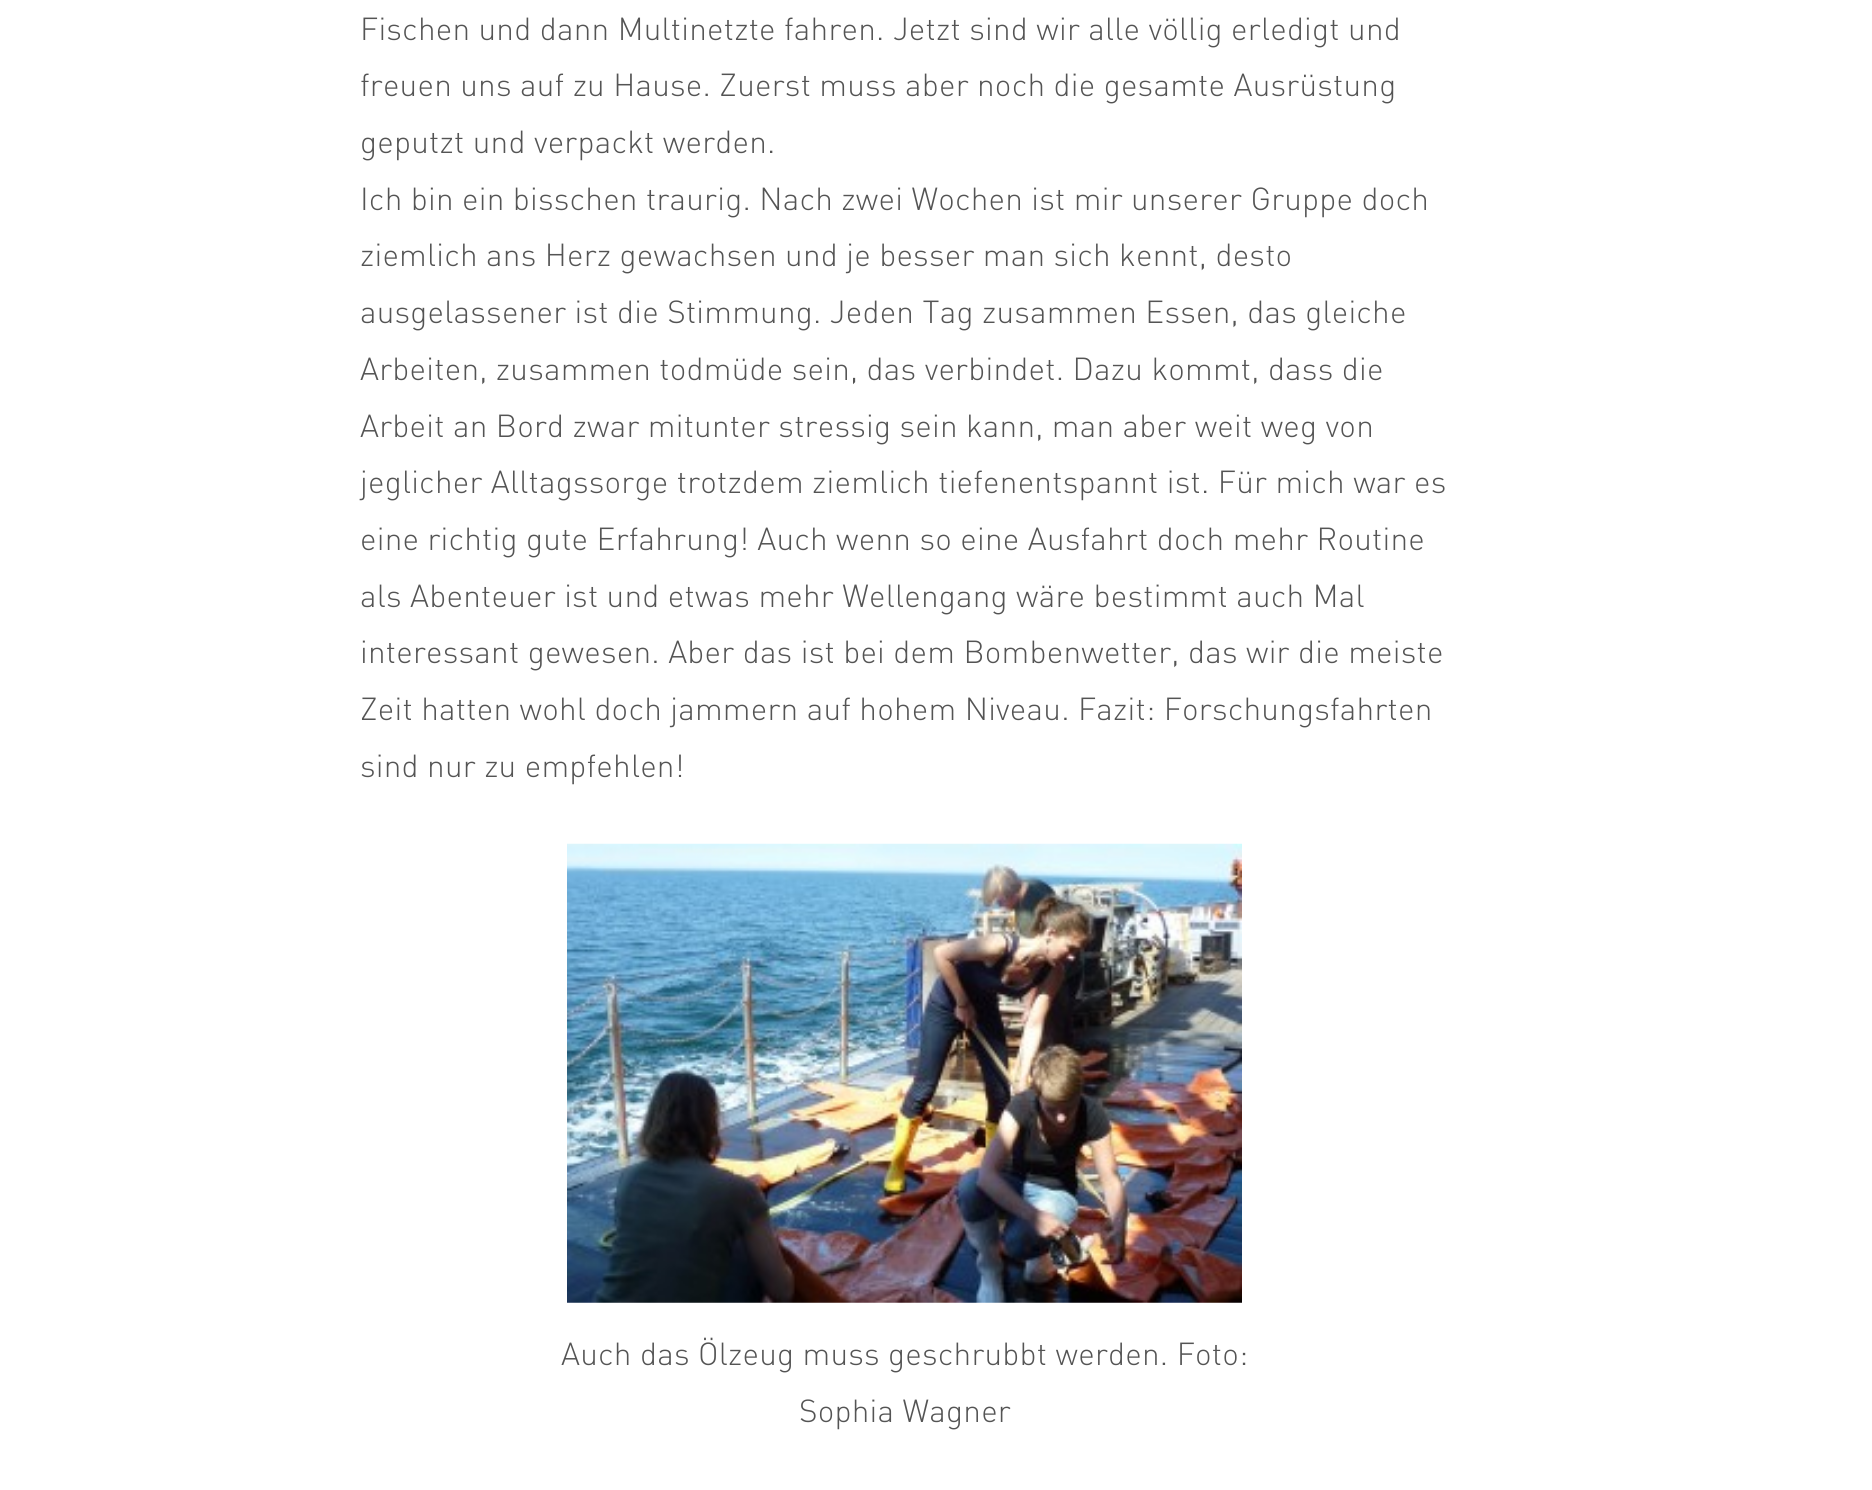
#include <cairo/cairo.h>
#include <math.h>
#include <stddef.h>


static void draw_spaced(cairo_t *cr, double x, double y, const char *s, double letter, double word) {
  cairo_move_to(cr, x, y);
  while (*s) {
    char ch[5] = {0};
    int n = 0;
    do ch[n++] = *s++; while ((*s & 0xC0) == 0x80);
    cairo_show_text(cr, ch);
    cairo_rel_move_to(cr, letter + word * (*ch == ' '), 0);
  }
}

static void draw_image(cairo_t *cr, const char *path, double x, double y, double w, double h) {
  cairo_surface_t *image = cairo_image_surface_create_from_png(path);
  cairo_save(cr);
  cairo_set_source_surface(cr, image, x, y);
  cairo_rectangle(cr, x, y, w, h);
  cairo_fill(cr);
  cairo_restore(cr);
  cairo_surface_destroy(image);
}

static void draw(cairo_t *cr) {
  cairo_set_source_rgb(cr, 1, 1, 1);
  cairo_paint(cr);
  draw_image(cr, "images/1.png", 567, 843, 675, 460);
  cairo_select_font_face(cr, "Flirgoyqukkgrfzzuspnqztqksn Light", CAIRO_FONT_SLANT_NORMAL, CAIRO_FONT_WEIGHT_NORMAL);
  cairo_set_font_size(cr, 31.5);
  cairo_set_source_rgb(cr, 84 / 255.0, 84 / 255.0, 84 / 255.0);
  draw_spaced(cr, 360, 40, "Fischen und dann Multinetzte fahren. Jetzt sind wir alle völlig erledigt und", 0.23, 0);
  draw_spaced(cr, 360, 96, "freuen uns auf zu Hause. Zuerst muss aber noch die gesamte Ausrüstung", 0.23, 0);
  draw_spaced(cr, 360, 153, "geputzt und verpackt werden.", 0.23, 0);
  draw_spaced(cr, 360, 210, "Ich bin ein bisschen traurig. Nach zwei Wochen ist mir unserer Gruppe doch", 0.23, 0);
  draw_spaced(cr, 360, 266, "ziemlich ans Herz gewachsen und je besser man sich kennt, desto", 0.23, 0);
  draw_spaced(cr, 360, 323, "ausgelassener ist die Stimmung. Jeden Tag zusammen Essen, das gleiche", 0.23, 0);
  draw_spaced(cr, 360, 380, "Arbeiten, zusammen todmüde sein, das verbindet. Dazu kommt, dass die", 0.23, 0);
  draw_spaced(cr, 360, 437, "Arbeit an Bord zwar mitunter stressig sein kann, man aber weit weg von", 0.23, 0);
  draw_spaced(cr, 360, 493, "jeglicher Alltagssorge trotzdem ziemlich tiefenentspannt ist. Für mich war es", 0.23, 0);
  draw_spaced(cr, 360, 550, "eine richtig gute Erfahrung! Auch wenn so eine Ausfahrt doch mehr Routine", 0.23, 0);
  draw_spaced(cr, 360, 607, "als Abenteuer ist und etwas mehr Wellengang wäre bestimmt auch Mal", 0.23, 0);
  draw_spaced(cr, 360, 663, "interessant gewesen. Aber das ist bei dem Bombenwetter, das wir die meiste", 0.23, 0);
  draw_spaced(cr, 360, 720, "Zeit hatten wohl doch jammern auf hohem Niveau. Fazit: Forschungsfahrten", 0.23, 0);
  draw_spaced(cr, 360, 777, "sind nur zu empfehlen!", 0.23, 0);
  draw_spaced(cr, 561, 1365, "Auch das Ölzeug muss geschrubbt werden. Foto:", 0.23, 0);
  draw_spaced(cr, 799, 1422, "Sophia Wagner", 0.23, 0);
}

int main(void) {
  cairo_surface_t *surface = cairo_image_surface_create(CAIRO_FORMAT_RGB24, 1872, 1490);
  cairo_t *cr = cairo_create(surface);
  cairo_font_options_t *options = cairo_font_options_create();
  cairo_font_options_set_hint_metrics(options, CAIRO_HINT_METRICS_OFF);
  cairo_font_options_set_hint_style(options, CAIRO_HINT_STYLE_NONE);
  cairo_set_font_options(cr, options);
  cairo_set_miter_limit(cr, 4);
  draw(cr);
  cairo_surface_write_to_png(surface, "out.png");
  cairo_font_options_destroy(options);
  cairo_destroy(cr);
  cairo_surface_destroy(surface);
  return 0;
}
